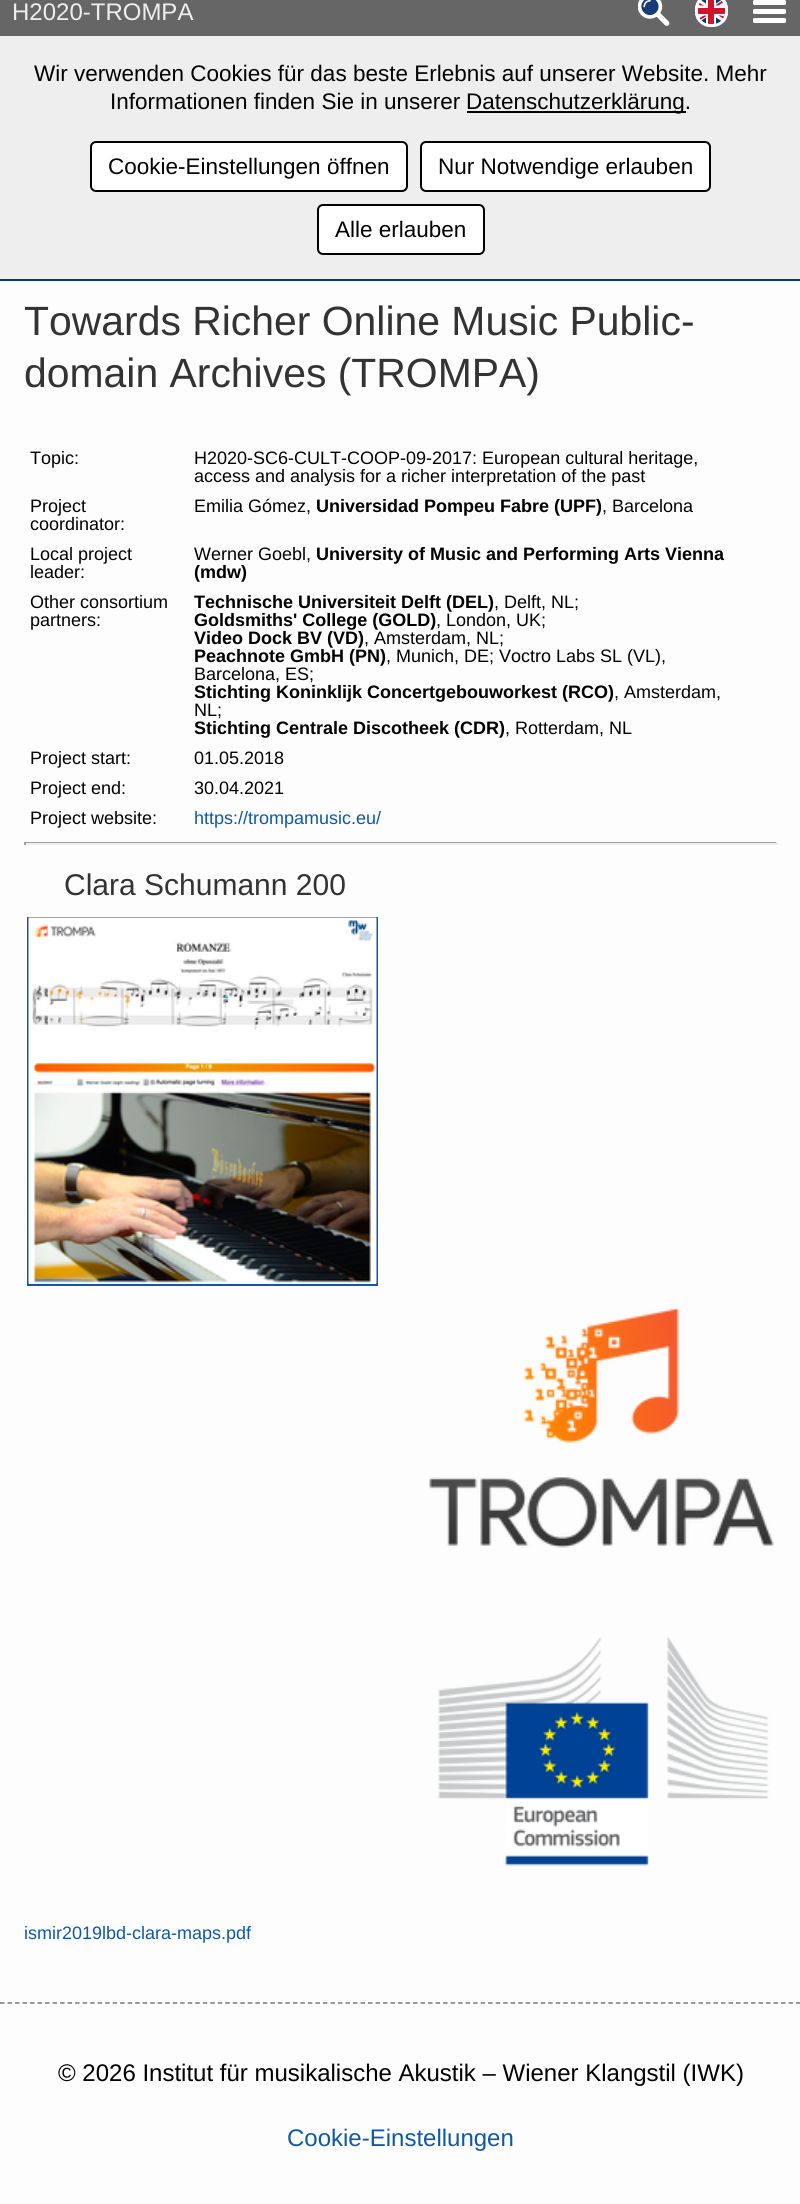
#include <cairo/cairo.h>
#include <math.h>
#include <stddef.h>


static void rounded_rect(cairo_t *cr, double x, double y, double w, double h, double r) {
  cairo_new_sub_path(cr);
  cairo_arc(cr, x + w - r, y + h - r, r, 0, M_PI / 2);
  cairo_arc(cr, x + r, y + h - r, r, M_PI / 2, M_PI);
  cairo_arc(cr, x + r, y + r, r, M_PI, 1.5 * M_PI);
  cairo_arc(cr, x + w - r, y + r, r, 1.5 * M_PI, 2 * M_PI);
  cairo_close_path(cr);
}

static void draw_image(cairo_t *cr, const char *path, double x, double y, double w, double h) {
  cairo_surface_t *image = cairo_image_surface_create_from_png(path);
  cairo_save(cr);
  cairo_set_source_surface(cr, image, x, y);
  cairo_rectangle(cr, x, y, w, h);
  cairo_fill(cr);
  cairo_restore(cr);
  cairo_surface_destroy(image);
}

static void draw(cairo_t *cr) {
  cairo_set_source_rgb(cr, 253 / 255.0, 253 / 255.0, 253 / 255.0);
  cairo_paint(cr);
  cairo_set_source_rgb(cr, 102 / 255.0, 102 / 255.0, 102 / 255.0);
  cairo_rectangle(cr, 0, 0, 800, 36);
  cairo_fill(cr);
  draw_image(cr, "images/1.png", 638, 0, 32, 26);
  draw_image(cr, "images/2.png", 695, 0, 33, 26);
  rounded_rect(cr, 696.5, -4.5, 30, 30, 13.5);
  cairo_set_source_rgb(cr, 1, 1, 1);
  cairo_set_line_width(cr, 3);
  cairo_stroke(cr);
  rounded_rect(cr, 753, 0, 33, 5, 1.5);
  cairo_fill(cr);
  rounded_rect(cr, 753, 9, 33, 5, 1.5);
  cairo_fill(cr);
  rounded_rect(cr, 753, 18, 33, 5, 1.5);
  cairo_fill(cr);
  cairo_set_source_rgb(cr, 238 / 255.0, 238 / 255.0, 238 / 255.0);
  cairo_rectangle(cr, 0, 36, 800, 243);
  cairo_fill(cr);
  cairo_set_source_rgb(cr, 0, 59 / 255.0, 121 / 255.0);
  cairo_rectangle(cr, 0, 279, 800, 2);
  cairo_fill(cr);
  cairo_set_source_rgb(cr, 0, 0, 0);
  cairo_rectangle(cr, 467, 111, 219, 2);
  cairo_fill(cr);
  cairo_set_source_rgb(cr, 1, 1, 1);
  rounded_rect(cr, 91, 142, 316, 49, 5);
  cairo_fill_preserve(cr);
  cairo_set_source_rgb(cr, 0, 0, 0);
  cairo_set_line_width(cr, 2);
  cairo_stroke(cr);
  cairo_set_source_rgb(cr, 1, 1, 1);
  rounded_rect(cr, 421, 142, 289, 49, 5);
  cairo_fill_preserve(cr);
  cairo_set_source_rgb(cr, 0, 0, 0);
  cairo_stroke(cr);
  cairo_set_source_rgb(cr, 1, 1, 1);
  rounded_rect(cr, 318, 205, 166, 49, 5);
  cairo_fill_preserve(cr);
  cairo_set_source_rgb(cr, 0, 0, 0);
  cairo_stroke(cr);
  cairo_set_source_rgb(cr, 159 / 255.0, 159 / 255.0, 159 / 255.0);
  cairo_rectangle(cr, 24, 842, 753, 1);
  cairo_fill(cr);
  cairo_set_source_rgb(cr, 238 / 255.0, 238 / 255.0, 238 / 255.0);
  cairo_rectangle(cr, 776, 842, 2, 3);
  cairo_fill(cr);
  cairo_rectangle(cr, 24, 843, 753, 2);
  cairo_fill(cr);
  cairo_set_source_rgb(cr, 159 / 255.0, 159 / 255.0, 159 / 255.0);
  cairo_rectangle(cr, 24, 842, 2, 3);
  cairo_fill(cr);
  cairo_rectangle(cr, 28, 918, 349, 367);
  cairo_set_source_rgb(cr, 15 / 255.0, 87 / 255.0, 169 / 255.0);
  cairo_stroke(cr);
  draw_image(cr, "images/3.png", 28, 917, 349, 367);
  draw_image(cr, "images/4.png", 429, 1307, 345, 241);
  draw_image(cr, "images/5.png", 438, 1637, 331, 229);
  cairo_new_path(cr);
  cairo_move_to(cr, 0, 2003);
  cairo_line_to(cr, 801, 2003);
  cairo_set_source_rgb(cr, 119 / 255.0, 119 / 255.0, 119 / 255.0);
  cairo_set_line_width(cr, 1.5);
  cairo_set_dash(cr, (double[]){4.5, 3.01}, 2, 0);
  cairo_stroke(cr);
  cairo_select_font_face(cr, "Liberation Sans", CAIRO_FONT_SLANT_NORMAL, CAIRO_FONT_WEIGHT_NORMAL);
  cairo_set_font_size(cr, 24);
  cairo_set_source_rgb(cr, 238 / 255.0, 238 / 255.0, 238 / 255.0);
  cairo_move_to(cr, 12, 20);
  cairo_show_text(cr, "H2020-TROMPA");
  cairo_set_font_size(cr, 22.5);
  cairo_set_source_rgb(cr, 0, 0, 0);
  cairo_move_to(cr, 34, 81);
  cairo_show_text(cr, "Wir verwenden Cookies für das beste Erlebnis auf unserer Website. Mehr");
  cairo_move_to(cr, 110, 109);
  cairo_show_text(cr, "Informationen finden Sie in unserer");
  cairo_move_to(cr, 466, 109);
  cairo_show_text(cr, "Datenschutzerklärung.");
  cairo_move_to(cr, 108, 174);
  cairo_show_text(cr, "Cookie-Einstellungen öffnen");
  cairo_move_to(cr, 438, 174);
  cairo_show_text(cr, "Nur Notwendige erlauben");
  cairo_move_to(cr, 335, 237);
  cairo_show_text(cr, "Alle erlauben");
  cairo_set_font_size(cr, 40.9);
  cairo_set_source_rgb(cr, 51 / 255.0, 51 / 255.0, 51 / 255.0);
  cairo_move_to(cr, 24, 335);
  cairo_show_text(cr, "Towards Richer Online Music Public-");
  cairo_move_to(cr, 24, 387);
  cairo_show_text(cr, "domain Archives (TROMPA)");
  cairo_set_font_size(cr, 18);
  cairo_set_source_rgb(cr, 0, 0, 0);
  cairo_move_to(cr, 30, 464);
  cairo_show_text(cr, "Topic:");
  cairo_move_to(cr, 194, 464);
  cairo_show_text(cr, "H2020-SC6-CULT-COOP-09-2017: European cultural heritage,");
  cairo_move_to(cr, 194, 482);
  cairo_show_text(cr, "access and analysis for a richer interpretation of the past");
  cairo_move_to(cr, 30, 512);
  cairo_show_text(cr, "Project");
  cairo_move_to(cr, 30, 530);
  cairo_show_text(cr, "coordinator:");
  cairo_move_to(cr, 194, 512);
  cairo_show_text(cr, "Emilia Gómez,");
  cairo_select_font_face(cr, "Liberation Sans", CAIRO_FONT_SLANT_NORMAL, CAIRO_FONT_WEIGHT_BOLD);
  cairo_move_to(cr, 316, 512);
  cairo_show_text(cr, "Universidad Pompeu Fabre (UPF)");
  cairo_select_font_face(cr, "Liberation Sans", CAIRO_FONT_SLANT_NORMAL, CAIRO_FONT_WEIGHT_NORMAL);
  cairo_move_to(cr, 602, 512);
  cairo_show_text(cr, ", Barcelona");
  cairo_move_to(cr, 30, 560);
  cairo_show_text(cr, "Local project");
  cairo_move_to(cr, 30, 578);
  cairo_show_text(cr, "leader:");
  cairo_move_to(cr, 194, 560);
  cairo_show_text(cr, "Werner Goebl,");
  cairo_select_font_face(cr, "Liberation Sans", CAIRO_FONT_SLANT_NORMAL, CAIRO_FONT_WEIGHT_BOLD);
  cairo_move_to(cr, 316, 560);
  cairo_show_text(cr, "University of Music and Performing Arts Vienna");
  cairo_move_to(cr, 194, 578);
  cairo_show_text(cr, "(mdw)");
  cairo_select_font_face(cr, "Liberation Sans", CAIRO_FONT_SLANT_NORMAL, CAIRO_FONT_WEIGHT_NORMAL);
  cairo_move_to(cr, 30, 608);
  cairo_show_text(cr, "Other consortium");
  cairo_move_to(cr, 30, 626);
  cairo_show_text(cr, "partners:");
  cairo_select_font_face(cr, "Liberation Sans", CAIRO_FONT_SLANT_NORMAL, CAIRO_FONT_WEIGHT_BOLD);
  cairo_move_to(cr, 194, 608);
  cairo_show_text(cr, "Technische Universiteit Delft (DEL)");
  cairo_select_font_face(cr, "Liberation Sans", CAIRO_FONT_SLANT_NORMAL, CAIRO_FONT_WEIGHT_NORMAL);
  cairo_move_to(cr, 494, 608);
  cairo_show_text(cr, ", Delft, NL;");
  cairo_select_font_face(cr, "Liberation Sans", CAIRO_FONT_SLANT_NORMAL, CAIRO_FONT_WEIGHT_BOLD);
  cairo_move_to(cr, 194, 626);
  cairo_show_text(cr, "Goldsmiths' College (GOLD)");
  cairo_select_font_face(cr, "Liberation Sans", CAIRO_FONT_SLANT_NORMAL, CAIRO_FONT_WEIGHT_NORMAL);
  cairo_move_to(cr, 436, 626);
  cairo_show_text(cr, ", London, UK;");
  cairo_select_font_face(cr, "Liberation Sans", CAIRO_FONT_SLANT_NORMAL, CAIRO_FONT_WEIGHT_BOLD);
  cairo_move_to(cr, 194, 644);
  cairo_show_text(cr, "Video Dock BV (VD)");
  cairo_select_font_face(cr, "Liberation Sans", CAIRO_FONT_SLANT_NORMAL, CAIRO_FONT_WEIGHT_NORMAL);
  cairo_move_to(cr, 364, 644);
  cairo_show_text(cr, ", Amsterdam, NL;");
  cairo_select_font_face(cr, "Liberation Sans", CAIRO_FONT_SLANT_NORMAL, CAIRO_FONT_WEIGHT_BOLD);
  cairo_move_to(cr, 194, 662);
  cairo_show_text(cr, "Peachnote GmbH (PN)");
  cairo_select_font_face(cr, "Liberation Sans", CAIRO_FONT_SLANT_NORMAL, CAIRO_FONT_WEIGHT_NORMAL);
  cairo_move_to(cr, 386, 662);
  cairo_show_text(cr, ", Munich, DE; Voctro Labs SL (VL),");
  cairo_move_to(cr, 194, 680);
  cairo_show_text(cr, "Barcelona, ES;");
  cairo_select_font_face(cr, "Liberation Sans", CAIRO_FONT_SLANT_NORMAL, CAIRO_FONT_WEIGHT_BOLD);
  cairo_move_to(cr, 194, 698);
  cairo_show_text(cr, "Stichting Koninklijk Concertgebouworkest (RCO)");
  cairo_select_font_face(cr, "Liberation Sans", CAIRO_FONT_SLANT_NORMAL, CAIRO_FONT_WEIGHT_NORMAL);
  cairo_move_to(cr, 614, 698);
  cairo_show_text(cr, ", Amsterdam,");
  cairo_move_to(cr, 194, 716);
  cairo_show_text(cr, "NL;");
  cairo_select_font_face(cr, "Liberation Sans", CAIRO_FONT_SLANT_NORMAL, CAIRO_FONT_WEIGHT_BOLD);
  cairo_move_to(cr, 194, 734);
  cairo_show_text(cr, "Stichting Centrale Discotheek (CDR)");
  cairo_select_font_face(cr, "Liberation Sans", CAIRO_FONT_SLANT_NORMAL, CAIRO_FONT_WEIGHT_NORMAL);
  cairo_move_to(cr, 505, 734);
  cairo_show_text(cr, ", Rotterdam, NL");
  cairo_move_to(cr, 30, 764);
  cairo_show_text(cr, "Project start:");
  cairo_move_to(cr, 194, 764);
  cairo_show_text(cr, "01.05.2018");
  cairo_move_to(cr, 30, 794);
  cairo_show_text(cr, "Project end:");
  cairo_move_to(cr, 194, 794);
  cairo_show_text(cr, "30.04.2021");
  cairo_move_to(cr, 30, 824);
  cairo_show_text(cr, "Project website:");
  cairo_set_source_rgb(cr, 15 / 255.0, 87 / 255.0, 169 / 255.0);
  cairo_move_to(cr, 194, 824);
  cairo_show_text(cr, "https://trompamusic.eu/");
  cairo_set_font_size(cr, 30);
  cairo_set_source_rgb(cr, 51 / 255.0, 51 / 255.0, 51 / 255.0);
  cairo_move_to(cr, 64, 895);
  cairo_show_text(cr, "Clara Schumann 200");
  cairo_set_font_size(cr, 18);
  cairo_set_source_rgb(cr, 15 / 255.0, 87 / 255.0, 169 / 255.0);
  cairo_move_to(cr, 24, 1939);
  cairo_show_text(cr, "ismir2019lbd-clara-maps.pdf");
  cairo_set_font_size(cr, 24);
  cairo_set_source_rgb(cr, 0, 0, 0);
  cairo_move_to(cr, 58, 2081);
  cairo_show_text(cr, "© 2026 Institut für musikalische Akustik – Wiener Klangstil (IWK)");
  cairo_set_source_rgb(cr, 15 / 255.0, 87 / 255.0, 169 / 255.0);
  cairo_move_to(cr, 287, 2146);
  cairo_show_text(cr, "Cookie-Einstellungen");
}

int main(void) {
  cairo_surface_t *surface = cairo_image_surface_create(CAIRO_FORMAT_RGB24, 800, 2204);
  cairo_t *cr = cairo_create(surface);
  cairo_font_options_t *options = cairo_font_options_create();
  cairo_font_options_set_hint_metrics(options, CAIRO_HINT_METRICS_OFF);
  cairo_font_options_set_hint_style(options, CAIRO_HINT_STYLE_NONE);
  cairo_set_font_options(cr, options);
  cairo_set_miter_limit(cr, 4);
  draw(cr);
  cairo_surface_write_to_png(surface, "out.png");
  cairo_font_options_destroy(options);
  cairo_destroy(cr);
  cairo_surface_destroy(surface);
  return 0;
}
